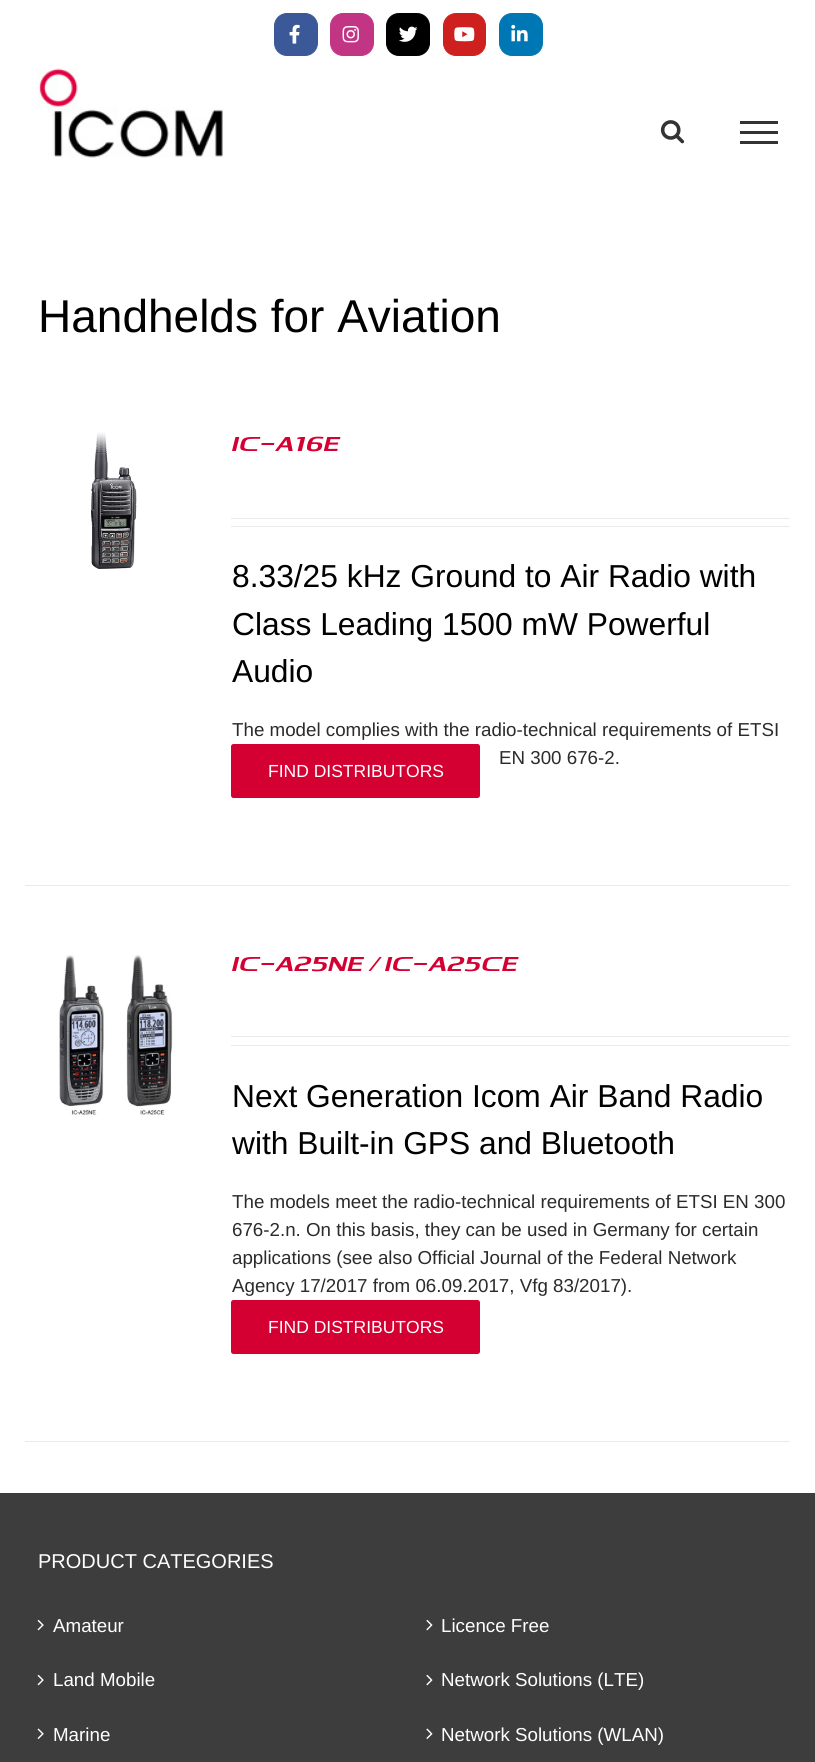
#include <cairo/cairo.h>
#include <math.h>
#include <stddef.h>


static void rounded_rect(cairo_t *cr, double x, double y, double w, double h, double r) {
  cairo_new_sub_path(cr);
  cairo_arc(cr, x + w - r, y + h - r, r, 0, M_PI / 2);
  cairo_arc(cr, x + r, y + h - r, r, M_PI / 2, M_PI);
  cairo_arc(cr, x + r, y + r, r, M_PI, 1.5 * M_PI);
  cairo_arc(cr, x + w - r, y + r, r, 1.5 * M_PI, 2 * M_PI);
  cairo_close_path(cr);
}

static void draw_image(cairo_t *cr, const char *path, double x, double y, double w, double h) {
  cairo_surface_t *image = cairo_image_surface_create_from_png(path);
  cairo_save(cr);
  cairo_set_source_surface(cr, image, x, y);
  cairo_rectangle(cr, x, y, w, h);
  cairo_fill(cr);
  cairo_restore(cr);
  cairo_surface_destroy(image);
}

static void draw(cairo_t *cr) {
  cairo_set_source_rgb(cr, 1, 1, 1);
  cairo_paint(cr);
  cairo_set_source_rgb(cr, 59 / 255.0, 89 / 255.0, 152 / 255.0);
  rounded_rect(cr, 274.5, 13.5, 43, 42, 12.5);
  cairo_fill_preserve(cr);
  cairo_set_line_width(cr, 1);
  cairo_stroke(cr);
  draw_image(cr, "images/1.png", 289, 24, 11, 20);
  cairo_set_source_rgb(cr, 193 / 255.0, 53 / 255.0, 132 / 255.0);
  rounded_rect(cr, 330.5, 13.5, 43, 42, 12.5);
  cairo_fill_preserve(cr);
  cairo_stroke(cr);
  draw_image(cr, "images/2.png", 342, 26, 17, 17);
  cairo_set_source_rgb(cr, 0, 0, 0);
  rounded_rect(cr, 386.5, 13.5, 43, 42, 12.5);
  cairo_fill_preserve(cr);
  cairo_stroke(cr);
  draw_image(cr, "images/3.png", 399, 26, 19, 16);
  cairo_set_source_rgb(cr, 205 / 255.0, 32 / 255.0, 31 / 255.0);
  rounded_rect(cr, 443.5, 13.5, 42, 42, 12.5);
  cairo_fill_preserve(cr);
  cairo_stroke(cr);
  draw_image(cr, "images/4.png", 454, 27, 21, 15);
  cairo_set_source_rgb(cr, 0, 119 / 255.0, 181 / 255.0);
  rounded_rect(cr, 499.5, 13.5, 43, 42, 12.5);
  cairo_fill_preserve(cr);
  cairo_stroke(cr);
  draw_image(cr, "images/5.png", 511, 24, 17, 18);
  draw_image(cr, "images/6.png", 37, 68, 188, 90);
  draw_image(cr, "images/7.png", 660, 120, 25, 24);
  cairo_set_source_rgb(cr, 51 / 255.0, 51 / 255.0, 51 / 255.0);
  cairo_rectangle(cr, 740, 121, 38, 3);
  cairo_fill(cr);
  cairo_rectangle(cr, 740, 131, 38, 3);
  cairo_fill(cr);
  cairo_rectangle(cr, 740, 141, 38, 3);
  cairo_fill(cr);
  cairo_set_source_rgb(cr, 235 / 255.0, 234 / 255.0, 234 / 255.0);
  cairo_rectangle(cr, 25, 885, 765, 1);
  cairo_fill(cr);
  draw_image(cr, "images/8.png", 91, 432, 46, 137);
  cairo_rectangle(cr, 231, 518, 559, 1);
  cairo_fill(cr);
  cairo_rectangle(cr, 231, 526, 559, 1);
  cairo_fill(cr);
  cairo_set_source_rgb(cr, 213 / 255.0, 0, 50 / 255.0);
  rounded_rect(cr, 231, 744, 249, 54, 2.5);
  cairo_fill(cr);
  cairo_set_source_rgb(cr, 235 / 255.0, 234 / 255.0, 234 / 255.0);
  cairo_rectangle(cr, 25, 1441, 765, 1);
  cairo_fill(cr);
  draw_image(cr, "images/9.png", 59, 954, 114, 161);
  cairo_rectangle(cr, 231, 1036, 559, 1);
  cairo_fill(cr);
  cairo_rectangle(cr, 231, 1045, 559, 1);
  cairo_fill(cr);
  cairo_set_source_rgb(cr, 213 / 255.0, 0, 50 / 255.0);
  rounded_rect(cr, 231, 1300, 249, 54, 2.5);
  cairo_fill(cr);
  cairo_set_source_rgb(cr, 61 / 255.0, 61 / 255.0, 61 / 255.0);
  cairo_rectangle(cr, 0, 1493, 815, 269);
  cairo_fill(cr);
  draw_image(cr, "images/10.png", 37, 1619, 7, 12);
  draw_image(cr, "images/10.png", 37, 1674, 7, 12);
  draw_image(cr, "images/11.png", 37, 1728, 7, 11);
  draw_image(cr, "images/12.png", 426, 1619, 7, 12);
  draw_image(cr, "images/12.png", 426, 1674, 7, 12);
  draw_image(cr, "images/13.png", 426, 1728, 7, 11);
  cairo_select_font_face(cr, "Liberation Sans", CAIRO_FONT_SLANT_NORMAL, CAIRO_FONT_WEIGHT_NORMAL);
  cairo_set_font_size(cr, 46);
  cairo_set_source_rgb(cr, 0, 0, 0);
  cairo_move_to(cr, 38, 332);
  cairo_show_text(cr, "Handhelds for Aviation");
  cairo_select_font_face(cr, "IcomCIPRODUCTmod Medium", CAIRO_FONT_SLANT_ITALIC, CAIRO_FONT_WEIGHT_NORMAL);
  cairo_set_font_size(cr, 17.5);
  cairo_set_source_rgb(cr, 213 / 255.0, 0, 50 / 255.0);
  cairo_move_to(cr, 232, 451);
  cairo_show_text(cr, "IC-A16E");
  cairo_select_font_face(cr, "Liberation Sans", CAIRO_FONT_SLANT_NORMAL, CAIRO_FONT_WEIGHT_NORMAL);
  cairo_set_font_size(cr, 31.75);
  cairo_set_source_rgb(cr, 0, 0, 0);
  cairo_move_to(cr, 232, 587);
  cairo_show_text(cr, "8.33/25 kHz Ground to Air Radio with");
  cairo_move_to(cr, 232, 635);
  cairo_show_text(cr, "Class Leading 1500 mW Powerful");
  cairo_move_to(cr, 232, 682);
  cairo_show_text(cr, "Audio");
  cairo_set_font_size(cr, 18.75);
  cairo_set_source_rgb(cr, 43 / 255.0, 43 / 255.0, 43 / 255.0);
  cairo_move_to(cr, 232, 736);
  cairo_show_text(cr, "The model complies with the radio-technical requirements of ETSI");
  cairo_move_to(cr, 499, 764);
  cairo_show_text(cr, "EN 300 676-2.");
  cairo_set_font_size(cr, 17.5);
  cairo_set_source_rgb(cr, 1, 1, 1);
  cairo_move_to(cr, 268, 777);
  cairo_show_text(cr, "FIND DISTRIBUTORS");
  cairo_select_font_face(cr, "IcomCIPRODUCTmod Medium", CAIRO_FONT_SLANT_ITALIC, CAIRO_FONT_WEIGHT_NORMAL);
  cairo_set_source_rgb(cr, 213 / 255.0, 0, 50 / 255.0);
  cairo_move_to(cr, 232, 971);
  cairo_show_text(cr, "IC-A25NE / IC-A25CE");
  cairo_select_font_face(cr, "Liberation Sans", CAIRO_FONT_SLANT_NORMAL, CAIRO_FONT_WEIGHT_NORMAL);
  cairo_set_font_size(cr, 31.75);
  cairo_set_source_rgb(cr, 0, 0, 0);
  cairo_move_to(cr, 232, 1107);
  cairo_show_text(cr, "Next Generation Icom Air Band Radio");
  cairo_move_to(cr, 232, 1154);
  cairo_show_text(cr, "with Built-in GPS and Bluetooth");
  cairo_set_font_size(cr, 18.75);
  cairo_set_source_rgb(cr, 43 / 255.0, 43 / 255.0, 43 / 255.0);
  cairo_move_to(cr, 232, 1208);
  cairo_show_text(cr, "The models meet the radio-technical requirements of ETSI EN 300");
  cairo_move_to(cr, 232, 1236);
  cairo_show_text(cr, "676-2.n. On this basis, they can be used in Germany for certain");
  cairo_move_to(cr, 232, 1264);
  cairo_show_text(cr, "applications (see also Official Journal of the Federal Network");
  cairo_move_to(cr, 232, 1292);
  cairo_show_text(cr, "Agency 17/2017 from 06.09.2017, Vfg 83/2017).");
  cairo_set_font_size(cr, 17.5);
  cairo_set_source_rgb(cr, 1, 1, 1);
  cairo_move_to(cr, 268, 1333);
  cairo_show_text(cr, "FIND DISTRIBUTORS");
  cairo_set_font_size(cr, 20);
  cairo_move_to(cr, 38, 1568);
  cairo_show_text(cr, "PRODUCT CATEGORIES");
  cairo_set_font_size(cr, 18.75);
  cairo_move_to(cr, 53, 1632);
  cairo_show_text(cr, "Amateur");
  cairo_move_to(cr, 53, 1686);
  cairo_show_text(cr, "Land Mobile");
  cairo_move_to(cr, 53, 1741);
  cairo_show_text(cr, "Marine");
  cairo_move_to(cr, 441, 1632);
  cairo_show_text(cr, "Licence Free");
  cairo_move_to(cr, 441, 1686);
  cairo_show_text(cr, "Network Solutions (LTE)");
  cairo_move_to(cr, 441, 1741);
  cairo_show_text(cr, "Network Solutions (WLAN)");
}

int main(void) {
  cairo_surface_t *surface = cairo_image_surface_create(CAIRO_FORMAT_RGB24, 815, 1762);
  cairo_t *cr = cairo_create(surface);
  cairo_font_options_t *options = cairo_font_options_create();
  cairo_font_options_set_hint_metrics(options, CAIRO_HINT_METRICS_OFF);
  cairo_font_options_set_hint_style(options, CAIRO_HINT_STYLE_NONE);
  cairo_set_font_options(cr, options);
  cairo_set_miter_limit(cr, 4);
  draw(cr);
  cairo_surface_write_to_png(surface, "out.png");
  cairo_font_options_destroy(options);
  cairo_destroy(cr);
  cairo_surface_destroy(surface);
  return 0;
}
